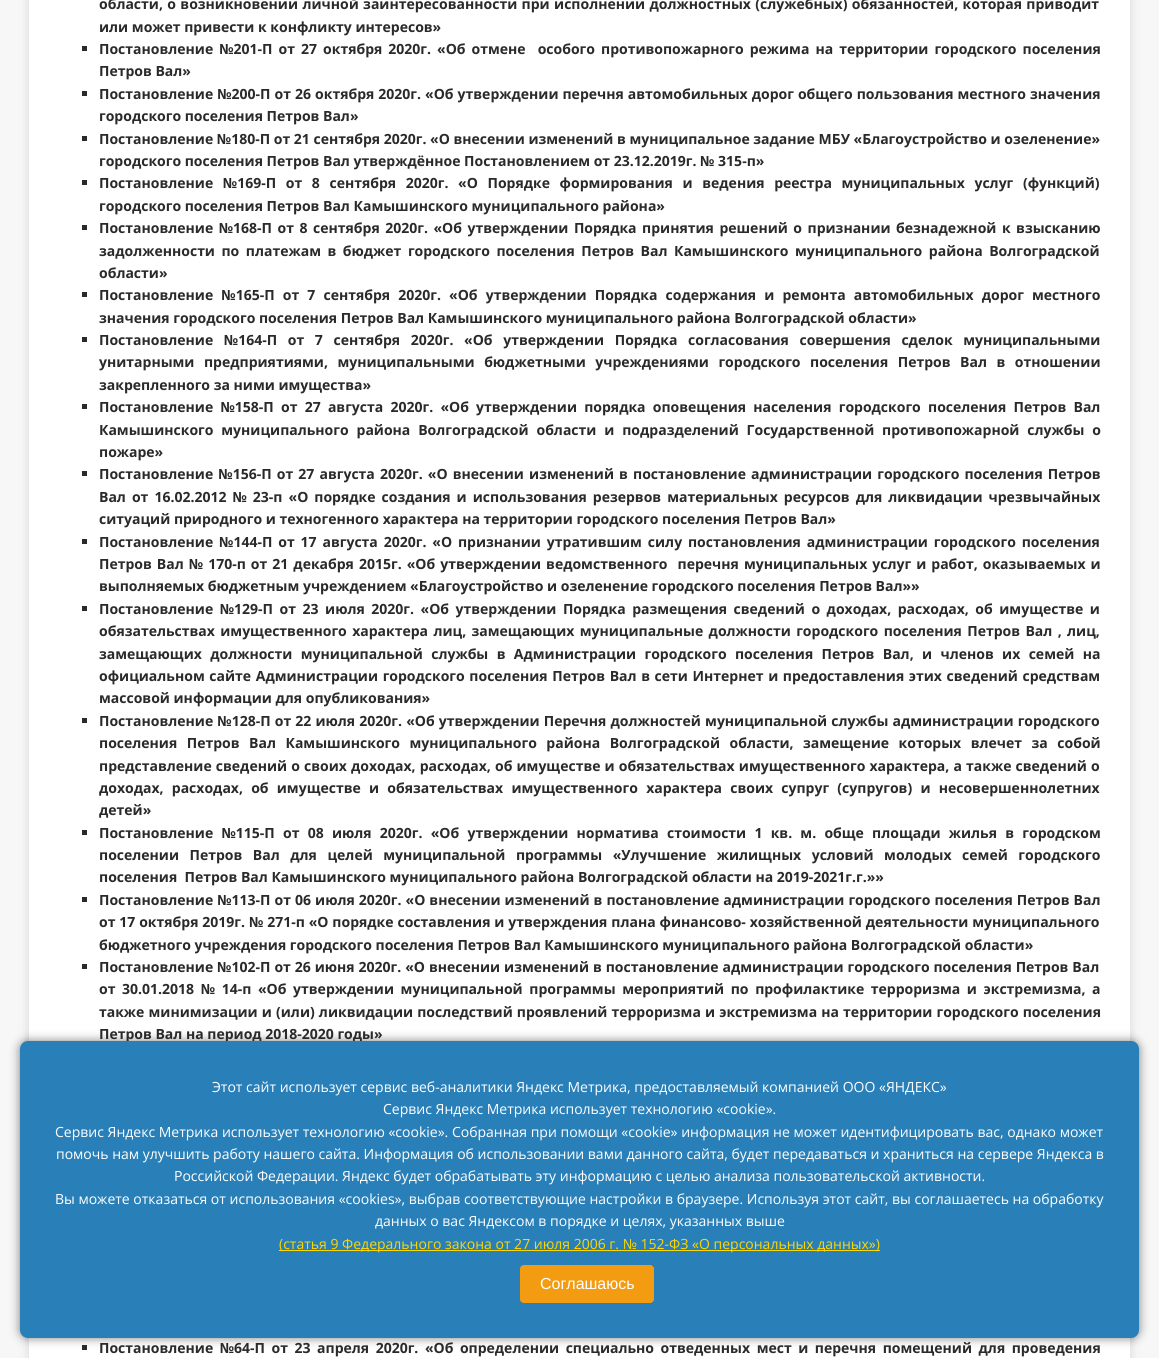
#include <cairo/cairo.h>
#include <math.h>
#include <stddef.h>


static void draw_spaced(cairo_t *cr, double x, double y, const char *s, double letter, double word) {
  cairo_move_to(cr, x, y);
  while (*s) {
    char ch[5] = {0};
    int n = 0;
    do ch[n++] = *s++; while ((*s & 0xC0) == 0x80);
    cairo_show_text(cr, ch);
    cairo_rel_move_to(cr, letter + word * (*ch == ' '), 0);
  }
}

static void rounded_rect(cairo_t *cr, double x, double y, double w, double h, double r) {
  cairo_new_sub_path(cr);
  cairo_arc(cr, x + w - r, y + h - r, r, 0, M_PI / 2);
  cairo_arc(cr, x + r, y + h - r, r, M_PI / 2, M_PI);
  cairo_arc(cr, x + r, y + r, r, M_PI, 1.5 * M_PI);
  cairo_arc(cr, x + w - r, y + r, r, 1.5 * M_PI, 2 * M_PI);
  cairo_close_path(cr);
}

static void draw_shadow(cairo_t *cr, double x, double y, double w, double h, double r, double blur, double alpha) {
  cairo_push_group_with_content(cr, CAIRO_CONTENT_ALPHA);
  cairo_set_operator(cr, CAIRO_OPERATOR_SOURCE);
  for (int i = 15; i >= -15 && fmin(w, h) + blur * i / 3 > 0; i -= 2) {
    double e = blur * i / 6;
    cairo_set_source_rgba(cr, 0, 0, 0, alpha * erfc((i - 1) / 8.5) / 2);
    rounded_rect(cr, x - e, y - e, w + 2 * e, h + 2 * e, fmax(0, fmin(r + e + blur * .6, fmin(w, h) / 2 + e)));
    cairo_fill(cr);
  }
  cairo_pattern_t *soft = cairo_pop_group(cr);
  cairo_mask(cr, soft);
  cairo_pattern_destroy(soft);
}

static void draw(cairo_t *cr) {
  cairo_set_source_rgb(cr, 247 / 255.0, 247 / 255.0, 247 / 255.0);
  cairo_paint(cr);
  cairo_set_source_rgb(cr, 50 / 255.0, 50 / 255.0, 50 / 255.0);
  draw_shadow(cr, 29, -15, 1101, 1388, 0, 5, 0.17);
  cairo_set_source_rgb(cr, 1, 1, 1);
  cairo_rectangle(cr, 29, 0, 1101, 1358);
  cairo_fill(cr);
  cairo_set_source_rgb(cr, 42 / 255.0, 42 / 255.0, 42 / 255.0);
  cairo_rectangle(cr, 82, 46, 5, 5);
  cairo_fill(cr);
  cairo_rectangle(cr, 82, 91, 5, 5);
  cairo_fill(cr);
  cairo_rectangle(cr, 82, 136, 5, 5);
  cairo_fill(cr);
  cairo_rectangle(cr, 82, 180, 5, 5);
  cairo_fill(cr);
  cairo_rectangle(cr, 82, 225, 5, 5);
  cairo_fill(cr);
  cairo_rectangle(cr, 82, 292, 5, 5);
  cairo_fill(cr);
  cairo_rectangle(cr, 82, 337, 5, 5);
  cairo_fill(cr);
  cairo_rectangle(cr, 82, 404, 5, 5);
  cairo_fill(cr);
  cairo_rectangle(cr, 82, 471, 5, 5);
  cairo_fill(cr);
  cairo_rectangle(cr, 82, 539, 5, 5);
  cairo_fill(cr);
  cairo_rectangle(cr, 82, 606, 5, 5);
  cairo_fill(cr);
  cairo_rectangle(cr, 82, 718, 5, 5);
  cairo_fill(cr);
  cairo_rectangle(cr, 82, 830, 5, 5);
  cairo_fill(cr);
  cairo_rectangle(cr, 82, 897, 5, 5);
  cairo_fill(cr);
  cairo_rectangle(cr, 82, 964, 5, 5);
  cairo_fill(cr);
  cairo_rectangle(cr, 82, 1345, 5, 5);
  cairo_fill(cr);
  cairo_set_source_rgb(cr, 0, 0, 0);
  draw_shadow(cr, 20, 1041, 1119, 297, 8, 5, 0.5);
  cairo_select_font_face(cr, "Open Sans", CAIRO_FONT_SLANT_NORMAL, CAIRO_FONT_WEIGHT_BOLD);
  cairo_set_font_size(cr, 14);
  cairo_set_source_rgb(cr, 42 / 255.0, 42 / 255.0, 42 / 255.0);
  draw_spaced(cr, 99, 9, "области, о возникновении личной заинтересованности при исполнении должностных (служебных) обязанностей, которая приводит", 0, 0.75);
  cairo_move_to(cr, 99, 32);
  cairo_show_text(cr, "или может привести к конфликту интересов»");
  draw_spaced(cr, 99, 54, "Постановление №201-П от 27 октября 2020г. «Об отмене  особого противопожарного режима на территории городского поселения", 0, 2.4);
  cairo_move_to(cr, 99, 76);
  cairo_show_text(cr, "Петров Вал»");
  draw_spaced(cr, 99, 99, "Постановление №200-П от 26 октября 2020г. «Об утверждении перечня автомобильных дорог общего пользования местного значения", 0, 0.4);
  cairo_move_to(cr, 99, 121);
  cairo_show_text(cr, "городского поселения Петров Вал»");
  cairo_move_to(cr, 99, 144);
  cairo_show_text(cr, "Постановление №180-П от 21 сентября 2020г. «О внесении изменений в муниципальное задание МБУ «Благоустройство и озеленение»");
  cairo_move_to(cr, 99, 166);
  cairo_show_text(cr, "городского поселения Петров Вал утверждённое Постановлением от 23.12.2019г. № 315-п»");
  draw_spaced(cr, 99, 188, "Постановление №169-П от 8 сентября 2020г. «О Порядке формирования и ведения реестра муниципальных услуг (функций)", 0, 6);
  cairo_move_to(cr, 99, 211);
  cairo_show_text(cr, "городского поселения Петров Вал Камышинского муниципального района»");
  draw_spaced(cr, 99, 233, "Постановление №168-П от 8 сентября 2020г. «Об утверждении Порядка принятия решений о признании безнадежной к взысканию", 0, 1.9);
  draw_spaced(cr, 99, 256, "задолженности по платежам в бюджет городского поселения Петров Вал Камышинского муниципального района Волгоградской", 0, 2.9);
  cairo_move_to(cr, 99, 278);
  cairo_show_text(cr, "области»");
  draw_spaced(cr, 99, 300, "Постановление №165-П от 7 сентября 2020г. «Об утверждении Порядка содержания и ремонта автомобильных дорог местного", 0, 4.5);
  cairo_move_to(cr, 99, 323);
  cairo_show_text(cr, "значения городского поселения Петров Вал Камышинского муниципального района Волгоградской области»");
  draw_spaced(cr, 99, 345, "Постановление №164-П от 7 сентября 2020г. «Об утверждении Порядка согласования совершения сделок муниципальными", 0, 7);
  draw_spaced(cr, 99, 367, "унитарными предприятиями, муниципальными бюджетными учреждениями городского поселения Петров Вал в отношении", 0, 5.9);
  cairo_move_to(cr, 99, 390);
  cairo_show_text(cr, "закрепленного за ними имущества»");
  draw_spaced(cr, 99, 412, "Постановление №158-П от 27 августа 2020г. «Об утверждении порядка оповещения населения городского поселения Петров Вал", 0, 3.6);
  draw_spaced(cr, 99, 435, "Камышинского муниципального района Волгоградской области и подразделений Государственной противопожарной службы о", 0, 4.25);
  cairo_move_to(cr, 99, 457);
  cairo_show_text(cr, "пожаре»");
  draw_spaced(cr, 99, 479, "Постановление №156-П от 27 августа 2020г. «О внесении изменений в постановление администрации городского поселения Петров", 0, 1.5);
  draw_spaced(cr, 99, 502, "Вал от 16.02.2012 № 23-п «О порядке создания и использования резервов материальных ресурсов для ликвидации чрезвычайных", 0, 2.4);
  cairo_move_to(cr, 99, 524);
  cairo_show_text(cr, "ситуаций природного и техногенного характера на территории городского поселения Петров Вал»");
  draw_spaced(cr, 99, 547, "Постановление №144-П от 17 августа 2020г. «О признании утратившим силу постановления администрации городского поселения", 0, 2.25);
  draw_spaced(cr, 99, 569, "Петров Вал № 170-п от 21 декабря 2015г. «Об утверждении ведомственного  перечня муниципальных услуг и работ, оказываемых и", 0, 1.4);
  cairo_move_to(cr, 99, 591);
  cairo_show_text(cr, "выполняемых бюджетным учреждением «Благоустройство и озеленение городского поселения Петров Вал»»");
  draw_spaced(cr, 99, 614, "Постановление №129-П от 23 июля 2020г. «Об утверждении Порядка размещения сведений о доходах, расходах, об имуществе и", 0, 2.9);
  draw_spaced(cr, 99, 636, "обязательствах имущественного характера лиц, замещающих муниципальные должности городского поселения Петров Вал , лиц,", 0, 1.75);
  draw_spaced(cr, 99, 659, "замещающих должности муниципальной службы в Администрации городского поселения Петров Вал, и членов их семей на", 0, 4.75);
  draw_spaced(cr, 99, 681, "официальном сайте Администрации городского поселения Петров Вал в сети Интернет и предоставления этих сведений средствам", 0, 1);
  cairo_move_to(cr, 99, 703);
  cairo_show_text(cr, "массовой информации для опубликования»");
  draw_spaced(cr, 99, 726, "Постановление №128-П от 22 июля 2020г. «Об утверждении Перечня должностей муниципальной службы администрации городского", 0, 0.5);
  draw_spaced(cr, 99, 748, "поселения Петров Вал Камышинского муниципального района Волгоградской области, замещение которых влечет за собой", 0, 5.9);
  draw_spaced(cr, 99, 771, "представление сведений о своих доходах, расходах, об имуществе и обязательствах имущественного характера, а также сведений о", 0, 0.5);
  draw_spaced(cr, 99, 793, "доходах, расходах, об имуществе и обязательствах имущественного характера своих супруг (супругов) и несовершеннолетних", 0, 4.6);
  cairo_move_to(cr, 99, 815);
  cairo_show_text(cr, "детей»");
  draw_spaced(cr, 99, 838, "Постановление №115-П от 08 июля 2020г. «Об утверждении норматива стоимости 1 кв. м. обще площади жилья в городском", 0, 4.6);
  draw_spaced(cr, 99, 860, "поселении Петров Вал для целей муниципальной программы «Улучшение жилищных условий молодых семей городского", 0, 6.9);
  cairo_move_to(cr, 99, 882);
  cairo_show_text(cr, "поселения  Петров Вал Камышинского муниципального района Волгоградской области на 2019-2021г.г.»»");
  draw_spaced(cr, 99, 905, "Постановление №113-П от 06 июля 2020г. «О внесении изменений в постановление администрации городского поселения Петров Вал", 0, 0.4);
  draw_spaced(cr, 99, 927, "от 17 октября 2019г. № 271-п «О порядке составления и утверждения плана финансово- хозяйственной деятельности муниципального", 0, 0.25);
  cairo_move_to(cr, 99, 950);
  cairo_show_text(cr, "бюджетного учреждения городского поселения Петров Вал Камышинского муниципального района Волгоградской области»");
  draw_spaced(cr, 99, 972, "Постановление №102-П от 26 июня 2020г. «О внесении изменений в постановление администрации городского поселения Петров Вал", 0, 0.3);
  draw_spaced(cr, 99, 994, "от 30.01.2018 № 14-п «Об утверждении муниципальной программы мероприятий по профилактике терроризма и экстремизма, а", 0, 3);
  draw_spaced(cr, 99, 1017, "также минимизации и (или) ликвидации последствий проявлений терроризма и экстремизма на территории городского поселения", 0, 0.5);
  cairo_move_to(cr, 99, 1039);
  cairo_show_text(cr, "Петров Вал на период 2018-2020 годы»");
  draw_spaced(cr, 99, 1353, "Постановление №64-П от 23 апреля 2020г. «Об определении специально отведенных мест и перечня помещений для проведения", 0, 2.9);
  cairo_set_source_rgb(cr, 41 / 255.0, 128 / 255.0, 185 / 255.0);
  rounded_rect(cr, 20, 1041, 1119, 297, 8);
  cairo_fill(cr);
  cairo_select_font_face(cr, "Open Sans", CAIRO_FONT_SLANT_NORMAL, CAIRO_FONT_WEIGHT_NORMAL);
  cairo_set_source_rgb(cr, 1, 1, 1);
  cairo_move_to(cr, 212, 1092);
  cairo_show_text(cr, "Этот сайт использует сервис веб-аналитики Яндекс Метрика, предоставляемый компанией ООО «ЯНДЕКС»");
  cairo_move_to(cr, 383, 1114);
  cairo_show_text(cr, "Сервис Яндекс Метрика использует технологию «cookie».");
  cairo_move_to(cr, 55, 1137);
  cairo_show_text(cr, "Сервис Яндекс Метрика использует технологию «cookie». Собранная при помощи «cookie» информация не может идентифицировать вас, однако может");
  cairo_move_to(cr, 56, 1159);
  cairo_show_text(cr, "помочь нам улучшить работу нашего сайта. Информация об использовании вами данного сайта, будет передаваться и храниться на сервере Яндекса в");
  cairo_move_to(cr, 174, 1181);
  cairo_show_text(cr, "Российской Федерации. Яндекс будет обрабатывать эту информацию с целью анализа пользовательской активности.");
  cairo_move_to(cr, 55, 1204);
  cairo_show_text(cr, "Вы можете отказаться от использования «cookies», выбрав соответствующие настройки в браузере. Используя этот сайт, вы соглашаетесь на обработку");
  cairo_move_to(cr, 375, 1226);
  cairo_show_text(cr, "данных о вас Яндексом в порядке и целях, указанных выше");
  cairo_set_source_rgb(cr, 1, 215 / 255.0, 0);
  cairo_rectangle(cr, 279, 1250, 601, 1);
  cairo_fill(cr);
  cairo_move_to(cr, 279, 1249);
  cairo_show_text(cr, "(статья 9 Федерального закона от 27 июля 2006 г. № 152-ФЗ «О персональных данных»)");
  cairo_set_source_rgb(cr, 243 / 255.0, 156 / 255.0, 18 / 255.0);
  rounded_rect(cr, 520, 1265, 134, 38, 4);
  cairo_fill(cr);
  cairo_select_font_face(cr, "Liberation Sans", CAIRO_FONT_SLANT_NORMAL, CAIRO_FONT_WEIGHT_NORMAL);
  cairo_set_font_size(cr, 16);
  cairo_set_source_rgb(cr, 1, 1, 1);
  cairo_move_to(cr, 540, 1289);
  cairo_show_text(cr, "Соглашаюсь");
}

int main(void) {
  cairo_surface_t *surface = cairo_image_surface_create(CAIRO_FORMAT_RGB24, 1159, 1358);
  cairo_t *cr = cairo_create(surface);
  cairo_font_options_t *options = cairo_font_options_create();
  cairo_font_options_set_hint_metrics(options, CAIRO_HINT_METRICS_OFF);
  cairo_font_options_set_hint_style(options, CAIRO_HINT_STYLE_NONE);
  cairo_set_font_options(cr, options);
  cairo_set_miter_limit(cr, 4);
  draw(cr);
  cairo_surface_write_to_png(surface, "out.png");
  cairo_font_options_destroy(options);
  cairo_destroy(cr);
  cairo_surface_destroy(surface);
  return 0;
}
